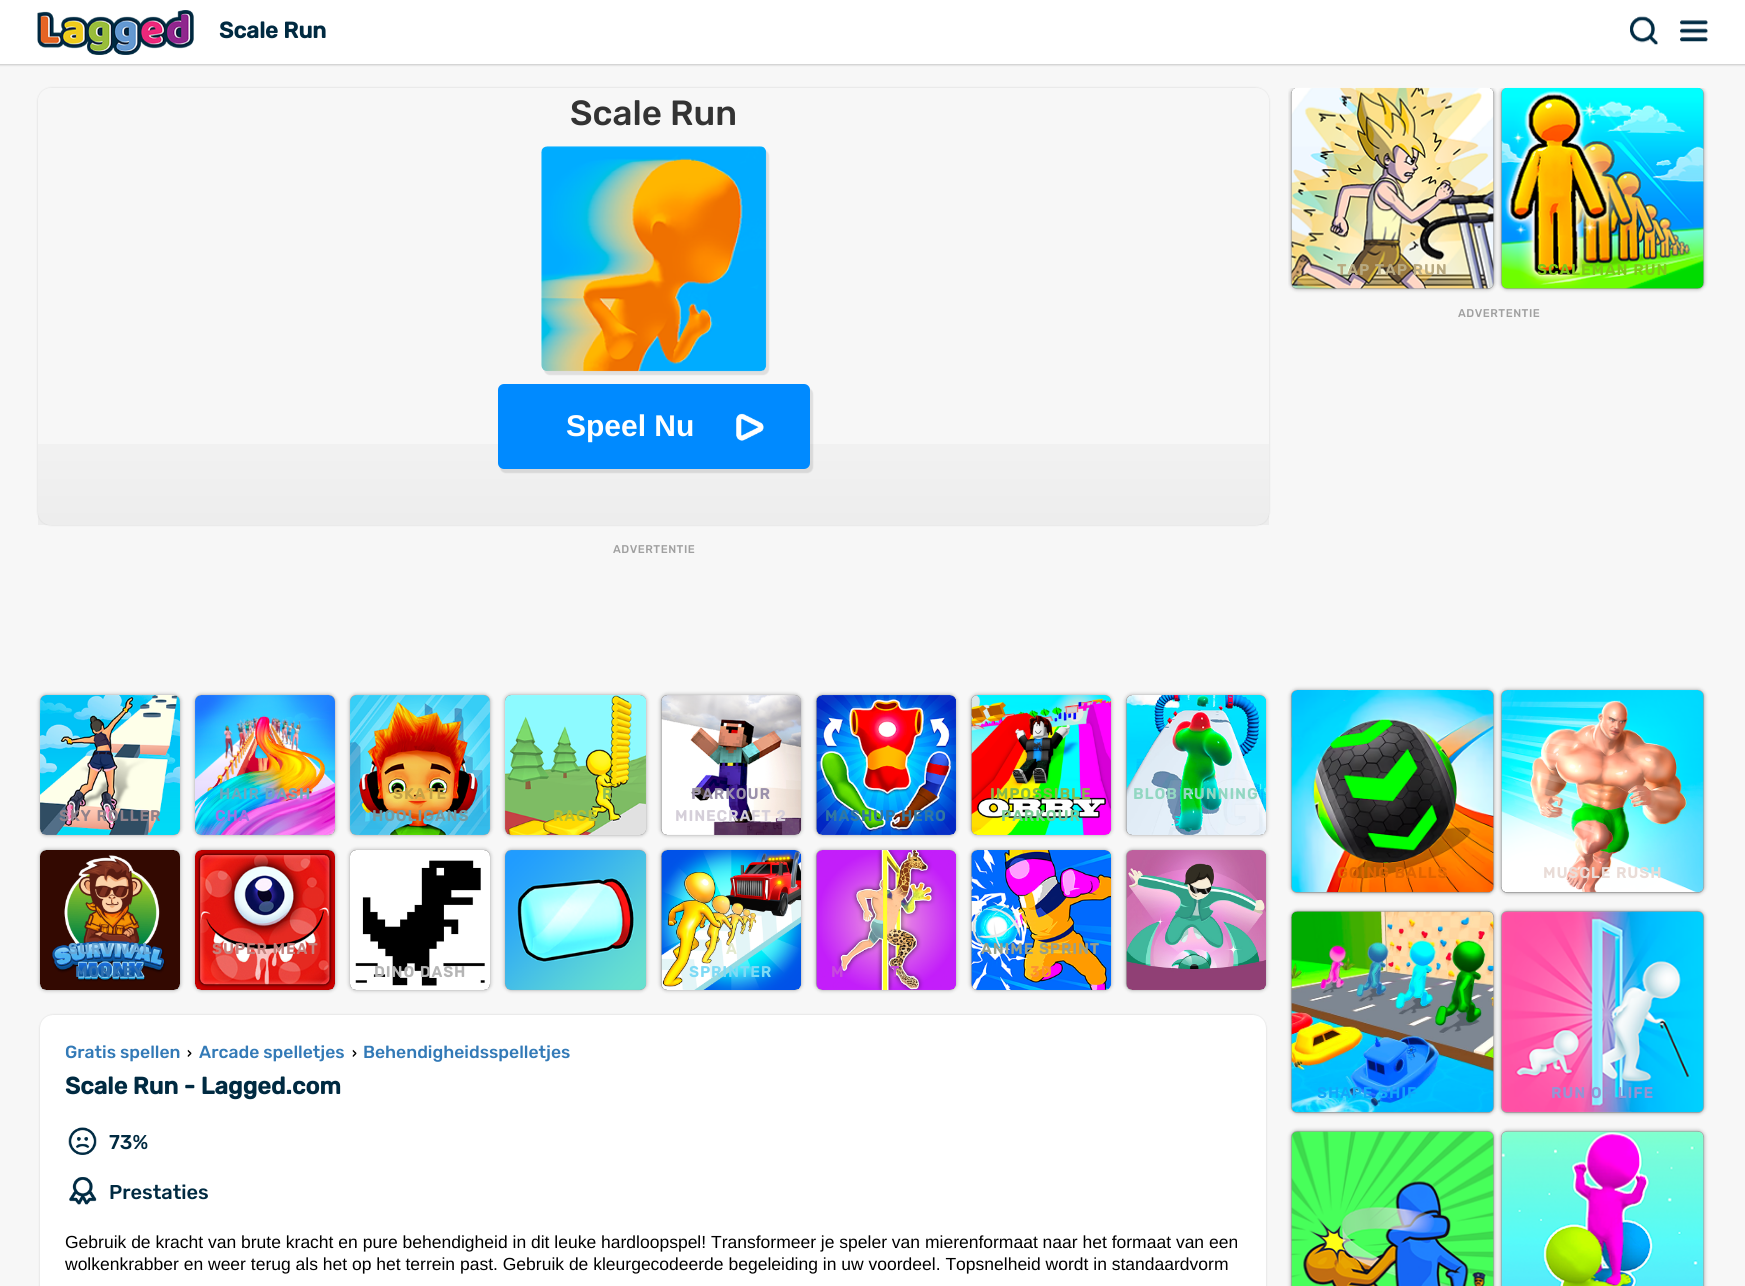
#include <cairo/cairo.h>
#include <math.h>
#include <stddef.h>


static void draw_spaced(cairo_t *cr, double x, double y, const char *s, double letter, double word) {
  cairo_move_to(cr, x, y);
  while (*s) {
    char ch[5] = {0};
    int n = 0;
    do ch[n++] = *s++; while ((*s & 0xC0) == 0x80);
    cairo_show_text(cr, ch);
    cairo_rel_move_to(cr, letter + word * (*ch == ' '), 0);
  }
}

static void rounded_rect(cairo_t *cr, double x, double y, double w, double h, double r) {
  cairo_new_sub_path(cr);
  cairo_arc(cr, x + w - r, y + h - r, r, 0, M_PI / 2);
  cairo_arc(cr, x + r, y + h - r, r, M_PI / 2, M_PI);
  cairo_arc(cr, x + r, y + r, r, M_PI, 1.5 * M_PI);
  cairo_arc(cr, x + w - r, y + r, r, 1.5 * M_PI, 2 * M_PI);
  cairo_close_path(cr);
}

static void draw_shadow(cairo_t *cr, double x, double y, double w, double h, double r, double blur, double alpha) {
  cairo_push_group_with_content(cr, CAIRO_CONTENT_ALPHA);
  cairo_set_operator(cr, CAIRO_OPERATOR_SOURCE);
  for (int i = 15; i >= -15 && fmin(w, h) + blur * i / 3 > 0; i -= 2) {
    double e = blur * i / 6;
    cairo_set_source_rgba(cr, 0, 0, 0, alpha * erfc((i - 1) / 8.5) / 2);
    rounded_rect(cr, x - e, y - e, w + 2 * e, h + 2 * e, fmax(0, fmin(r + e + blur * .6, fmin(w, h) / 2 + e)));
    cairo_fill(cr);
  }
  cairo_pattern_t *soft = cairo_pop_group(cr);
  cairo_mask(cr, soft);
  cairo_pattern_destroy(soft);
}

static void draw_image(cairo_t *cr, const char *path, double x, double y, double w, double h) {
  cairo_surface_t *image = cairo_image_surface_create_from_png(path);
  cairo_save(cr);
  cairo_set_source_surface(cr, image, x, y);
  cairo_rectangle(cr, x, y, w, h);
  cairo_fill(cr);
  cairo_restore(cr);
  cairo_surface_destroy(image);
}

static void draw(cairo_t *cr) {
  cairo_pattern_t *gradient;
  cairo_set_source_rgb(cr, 247 / 255.0, 247 / 255.0, 247 / 255.0);
  cairo_paint(cr);
  cairo_set_source_rgb(cr, 0, 0, 0);
  draw_shadow(cr, -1, -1, 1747, 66, 0, 1, 0.2);
  cairo_set_source_rgb(cr, 1, 1, 1);
  cairo_rectangle(cr, 0, 0, 1745, 64);
  cairo_fill(cr);
  draw_image(cr, "images/1.png", 37, 10, 157, 45);
  draw_image(cr, "images/2.png", 1630, 16, 28, 29);
  draw_image(cr, "images/3.png", 1680, 20, 28, 22);
  cairo_save(cr);
  cairo_set_fill_rule(cr, CAIRO_FILL_RULE_EVEN_ODD);
  cairo_new_path(cr);
  cairo_move_to(cr, 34, 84);
  cairo_line_to(cr, 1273, 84);
  cairo_line_to(cr, 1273, 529);
  cairo_line_to(cr, 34, 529);
  cairo_close_path(cr);
  cairo_move_to(cr, 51, 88);
  cairo_line_to(cr, 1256, 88);
  cairo_curve_to(cr, 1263, 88, 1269, 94, 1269, 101);
  cairo_line_to(cr, 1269, 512);
  cairo_curve_to(cr, 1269, 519, 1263, 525, 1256, 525);
  cairo_line_to(cr, 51, 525);
  cairo_curve_to(cr, 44, 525, 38, 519, 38, 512);
  cairo_line_to(cr, 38, 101);
  cairo_curve_to(cr, 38, 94, 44, 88, 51, 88);
  cairo_close_path(cr);
  cairo_clip(cr);
  cairo_set_source_rgb(cr, 0, 0, 0);
  draw_shadow(cr, 38, 88, 1231, 437, 13, 1, 0.15);
  cairo_restore(cr);
  gradient = cairo_pattern_create_linear(653, 87, 653, 525);
  cairo_pattern_add_color_stop_rgba(gradient, 0.6, 0, 0, 0, 0);
  cairo_pattern_add_color_stop_rgba(gradient, 1, 0, 0, 0, 0.04);
  cairo_set_source(cr, gradient);
  cairo_pattern_destroy(gradient);
  cairo_rectangle(cr, 38, 444, 1231, 81);
  cairo_fill(cr);
  cairo_set_source_rgb(cr, 0, 0, 0);
  draw_shadow(cr, 544, 150, 225, 225, 6, 0.5, 0.1);
  draw_image(cr, "images/4.png", 541, 146, 226, 226);
  draw_shadow(cr, 500, 388, 313, 85, 6, 0.5, 0.1);
  cairo_set_source_rgb(cr, 0, 138 / 255.0, 1);
  rounded_rect(cr, 498, 384, 312, 85, 6);
  cairo_fill(cr);
  draw_image(cr, "images/5.png", 736, 413, 28, 28);
  cairo_set_source_rgb(cr, 0, 0, 0);
  draw_shadow(cr, 195, 695, 140, 140, 6, 2, 0.35);
  cairo_set_source_rgba(cr, 0, 0, 0, 0.18);
  rounded_rect(cr, 195, 695, 140, 140, 6);
  cairo_fill(cr);
  draw_image(cr, "images/6.png", 195, 695, 140, 140);
  cairo_set_source_rgb(cr, 0, 0, 0);
  draw_shadow(cr, 350, 695, 140, 140, 6, 2, 0.35);
  cairo_set_source_rgba(cr, 0, 0, 0, 0.18);
  rounded_rect(cr, 350, 695, 140, 140, 6);
  cairo_fill(cr);
  draw_image(cr, "images/7.png", 350, 695, 140, 140);
  cairo_set_source_rgb(cr, 0, 0, 0);
  draw_shadow(cr, 505, 695, 141, 140, 6, 2, 0.35);
  cairo_set_source_rgba(cr, 0, 0, 0, 0.18);
  rounded_rect(cr, 505, 695, 141, 140, 6);
  cairo_fill(cr);
  draw_image(cr, "images/8.png", 505, 695, 141, 140);
  cairo_set_source_rgb(cr, 0, 0, 0);
  draw_shadow(cr, 661, 695, 140, 140, 6, 2, 0.35);
  cairo_set_source_rgba(cr, 0, 0, 0, 0.18);
  rounded_rect(cr, 661, 695, 140, 140, 6);
  cairo_fill(cr);
  draw_image(cr, "images/9.png", 661, 695, 140, 140);
  cairo_set_source_rgb(cr, 0, 0, 0);
  draw_shadow(cr, 971, 695, 140, 140, 6, 2, 0.35);
  cairo_set_source_rgba(cr, 0, 0, 0, 0.18);
  rounded_rect(cr, 971, 695, 140, 140, 6);
  cairo_fill(cr);
  draw_image(cr, "images/10.png", 971, 695, 140, 140);
  cairo_set_source_rgb(cr, 0, 0, 0);
  draw_shadow(cr, 1126, 695, 140, 140, 6, 2, 0.35);
  cairo_set_source_rgba(cr, 0, 0, 0, 0.18);
  rounded_rect(cr, 1126, 695, 140, 140, 6);
  cairo_fill(cr);
  draw_image(cr, "images/11.png", 1126, 695, 140, 140);
  cairo_set_source_rgb(cr, 0, 0, 0);
  draw_shadow(cr, 40, 695, 140, 140, 6, 2, 0.35);
  cairo_set_source_rgba(cr, 0, 0, 0, 0.18);
  rounded_rect(cr, 40, 695, 140, 140, 6);
  cairo_fill(cr);
  draw_image(cr, "images/12.png", 40, 695, 140, 140);
  cairo_set_source_rgb(cr, 0, 0, 0);
  draw_shadow(cr, 816, 695, 140, 140, 6, 2, 0.35);
  cairo_set_source_rgba(cr, 0, 0, 0, 0.18);
  rounded_rect(cr, 816, 695, 140, 140, 6);
  cairo_fill(cr);
  draw_image(cr, "images/13.png", 816, 695, 140, 140);
  cairo_set_source_rgb(cr, 0, 0, 0);
  draw_shadow(cr, 40, 850, 140, 140, 6, 2, 0.35);
  cairo_set_source_rgba(cr, 0, 0, 0, 0.18);
  rounded_rect(cr, 40, 850, 140, 140, 6);
  cairo_fill(cr);
  draw_image(cr, "images/14.png", 40, 850, 140, 140);
  cairo_set_source_rgb(cr, 0, 0, 0);
  draw_shadow(cr, 195, 850, 140, 140, 6, 2, 0.35);
  cairo_set_source_rgba(cr, 0, 0, 0, 0.18);
  rounded_rect(cr, 195, 850, 140, 140, 6);
  cairo_fill(cr);
  draw_image(cr, "images/15.png", 195, 850, 140, 140);
  cairo_set_source_rgb(cr, 0, 0, 0);
  draw_shadow(cr, 350, 850, 140, 140, 6, 2, 0.35);
  cairo_set_source_rgba(cr, 0, 0, 0, 0.18);
  rounded_rect(cr, 350, 850, 140, 140, 6);
  cairo_fill(cr);
  draw_image(cr, "images/16.png", 350, 850, 140, 140);
  cairo_set_source_rgb(cr, 0, 0, 0);
  draw_shadow(cr, 505, 850, 141, 140, 6, 2, 0.35);
  cairo_set_source_rgba(cr, 0, 0, 0, 0.18);
  rounded_rect(cr, 505, 850, 141, 140, 6);
  cairo_fill(cr);
  draw_image(cr, "images/17.png", 505, 850, 141, 140);
  cairo_set_source_rgb(cr, 0, 0, 0);
  draw_shadow(cr, 661, 850, 140, 140, 6, 2, 0.35);
  cairo_set_source_rgba(cr, 0, 0, 0, 0.18);
  rounded_rect(cr, 661, 850, 140, 140, 6);
  cairo_fill(cr);
  draw_image(cr, "images/18.png", 661, 850, 140, 140);
  cairo_set_source_rgb(cr, 0, 0, 0);
  draw_shadow(cr, 816, 850, 140, 140, 6, 2, 0.35);
  cairo_set_source_rgba(cr, 0, 0, 0, 0.18);
  rounded_rect(cr, 816, 850, 140, 140, 6);
  cairo_fill(cr);
  draw_image(cr, "images/19.png", 816, 850, 140, 140);
  cairo_set_source_rgb(cr, 0, 0, 0);
  draw_shadow(cr, 971, 850, 140, 140, 6, 2, 0.35);
  cairo_set_source_rgba(cr, 0, 0, 0, 0.18);
  rounded_rect(cr, 971, 850, 140, 140, 6);
  cairo_fill(cr);
  draw_image(cr, "images/20.png", 971, 850, 140, 140);
  cairo_set_source_rgb(cr, 0, 0, 0);
  draw_shadow(cr, 1126, 850, 140, 140, 6, 2, 0.35);
  cairo_set_source_rgba(cr, 0, 0, 0, 0.18);
  rounded_rect(cr, 1126, 850, 140, 140, 6);
  cairo_fill(cr);
  draw_image(cr, "images/21.png", 1126, 850, 140, 140);
  cairo_set_source_rgb(cr, 0, 0, 0);
  draw_shadow(cr, 40, 1015, 1226, 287, 13, 1, 0.15);
  cairo_set_source_rgb(cr, 1, 1, 1);
  rounded_rect(cr, 40, 1015, 1226, 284, 13);
  cairo_fill(cr);
  draw_image(cr, "images/22.png", 68, 1127, 29, 28);
  draw_image(cr, "images/23.png", 69, 1177, 28, 28);
  cairo_save(cr);
  cairo_rectangle(cr, 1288, 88, 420, 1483);
  cairo_clip(cr);
  cairo_set_source_rgb(cr, 0, 0, 0);
  draw_shadow(cr, 1291, 88, 203, 201, 6, 2, 0.35);
  cairo_restore(cr);
  cairo_set_source_rgba(cr, 0, 0, 0, 0.18);
  rounded_rect(cr, 1291, 88, 203, 201, 6);
  cairo_fill(cr);
  draw_image(cr, "images/24.png", 1291, 87, 203, 202);
  cairo_save(cr);
  cairo_rectangle(cr, 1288, 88, 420, 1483);
  cairo_clip(cr);
  cairo_set_source_rgb(cr, 0, 0, 0);
  draw_shadow(cr, 1501, 88, 203, 201, 6, 2, 0.35);
  cairo_restore(cr);
  rounded_rect(cr, 1501, 88, 203, 201, 6);
  cairo_fill(cr);
  draw_image(cr, "images/25.png", 1501, 87, 203, 202);
  cairo_set_source_rgb(cr, 0, 0, 0);
  draw_shadow(cr, 1291, 690, 203, 203, 6, 2, 0.35);
  cairo_set_source_rgba(cr, 0, 0, 0, 0.18);
  rounded_rect(cr, 1291, 690, 203, 203, 6);
  cairo_fill(cr);
  draw_image(cr, "images/26.png", 1291, 690, 203, 203);
  cairo_set_source_rgb(cr, 0, 0, 0);
  draw_shadow(cr, 1501, 690, 203, 203, 6, 2, 0.35);
  cairo_set_source_rgba(cr, 0, 0, 0, 0.18);
  rounded_rect(cr, 1501, 690, 203, 203, 6);
  cairo_fill(cr);
  draw_image(cr, "images/27.png", 1501, 690, 203, 203);
  cairo_set_source_rgb(cr, 0, 0, 0);
  draw_shadow(cr, 1291, 911, 203, 202, 6, 2, 0.35);
  cairo_set_source_rgba(cr, 0, 0, 0, 0.18);
  rounded_rect(cr, 1291, 911, 203, 202, 6);
  cairo_fill(cr);
  draw_image(cr, "images/28.png", 1291, 911, 203, 202);
  cairo_set_source_rgb(cr, 0, 0, 0);
  draw_shadow(cr, 1501, 911, 203, 202, 6, 2, 0.35);
  cairo_set_source_rgba(cr, 0, 0, 0, 0.18);
  rounded_rect(cr, 1501, 911, 203, 202, 6);
  cairo_fill(cr);
  draw_image(cr, "images/29.png", 1501, 911, 203, 202);
  cairo_set_source_rgb(cr, 0, 0, 0);
  draw_shadow(cr, 1291, 1131, 203, 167, 6, 2, 0.35);
  cairo_set_source_rgba(cr, 0, 0, 0, 0.18);
  rounded_rect(cr, 1291, 1131, 203, 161, 6);
  cairo_fill(cr);
  draw_image(cr, "images/30.png", 1291, 1131, 203, 155);
  cairo_set_source_rgb(cr, 0, 0, 0);
  draw_shadow(cr, 1501, 1131, 203, 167, 6, 2, 0.35);
  cairo_set_source_rgba(cr, 0, 0, 0, 0.18);
  rounded_rect(cr, 1501, 1131, 203, 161, 6);
  cairo_fill(cr);
  draw_image(cr, "images/31.png", 1501, 1131, 203, 155);
  cairo_select_font_face(cr, "Rubik", CAIRO_FONT_SLANT_NORMAL, CAIRO_FONT_WEIGHT_BOLD);
  cairo_set_font_size(cr, 22.5);
  cairo_set_source_rgb(cr, 0, 42 / 255.0, 65 / 255.0);
  cairo_move_to(cr, 219, 38);
  cairo_show_text(cr, "Scale Run");
  cairo_select_font_face(cr, "Rubik Medium", CAIRO_FONT_SLANT_NORMAL, CAIRO_FONT_WEIGHT_NORMAL);
  cairo_set_font_size(cr, 35);
  cairo_set_source_rgb(cr, 51 / 255.0, 51 / 255.0, 51 / 255.0);
  cairo_move_to(cr, 570, 125);
  cairo_show_text(cr, "Scale Run");
  cairo_select_font_face(cr, "Liberation Sans", CAIRO_FONT_SLANT_NORMAL, CAIRO_FONT_WEIGHT_BOLD);
  cairo_set_font_size(cr, 30);
  cairo_set_source_rgb(cr, 1, 1, 1);
  cairo_move_to(cr, 566, 436);
  cairo_show_text(cr, "Speel Nu");
  cairo_select_font_face(cr, "Rubik Medium", CAIRO_FONT_SLANT_NORMAL, CAIRO_FONT_WEIGHT_NORMAL);
  cairo_set_font_size(cr, 11.25);
  cairo_set_source_rgb(cr, 160 / 255.0, 160 / 255.0, 160 / 255.0);
  draw_spaced(cr, 613, 553, "ADVERTENTIE", 0.5, 0);
  cairo_select_font_face(cr, "Rubik", CAIRO_FONT_SLANT_NORMAL, CAIRO_FONT_WEIGHT_BOLD);
  cairo_set_font_size(cr, 15);
  cairo_set_source_rgb(cr, 109 / 255.0, 168 / 255.0, 191 / 255.0);
  draw_spaced(cr, 219, 799, "HAIR DASH", 1.25, 0);
  cairo_set_source_rgb(cr, 160 / 255.0, 114 / 255.0, 226 / 255.0);
  draw_spaced(cr, 215, 821, "CHA", 1.25, 0);
  cairo_set_source_rgb(cr, 197 / 255.0, 162 / 255.0, 71 / 255.0);
  draw_spaced(cr, 393, 799, "SKATE", 1.25, 0);
  cairo_set_source_rgb(cr, 118 / 255.0, 155 / 255.0, 161 / 255.0);
  draw_spaced(cr, 372, 821, "HOOLIGANS", 1.25, 0);
  cairo_set_source_rgb(cr, 141 / 255.0, 189 / 255.0, 86 / 255.0);
  draw_spaced(cr, 602, 799, "R", 1.25, 0);
  cairo_set_source_rgb(cr, 181 / 255.0, 194 / 255.0, 50 / 255.0);
  draw_spaced(cr, 553, 821, "RACE", 1.25, 0);
  cairo_set_source_rgb(cr, 155 / 255.0, 145 / 255.0, 171 / 255.0);
  draw_spaced(cr, 691, 799, "PARKOUR", 1.25, 0);
  cairo_set_source_rgb(cr, 213 / 255.0, 207 / 255.0, 217 / 255.0);
  draw_spaced(cr, 675, 821, "MINECRAFT 2", 1.25, 0);
  cairo_set_source_rgb(cr, 134 / 255.0, 186 / 255.0, 73 / 255.0);
  draw_spaced(cr, 990, 799, "IMPOSSIBLE", 1.25, 0);
  cairo_set_source_rgb(cr, 122 / 255.0, 202 / 255.0, 150 / 255.0);
  draw_spaced(cr, 1001, 821, "PARKOUR", 1.25, 0);
  cairo_set_source_rgb(cr, 146 / 255.0, 215 / 255.0, 194 / 255.0);
  draw_spaced(cr, 1133, 799, "BLOB RUNNING", 1.25, 0);
  cairo_set_source_rgb(cr, 145 / 255.0, 130 / 255.0, 139 / 255.0);
  draw_spaced(cr, 59, 821, "SKY ROLLER", 1.25, 0);
  cairo_set_source_rgb(cr, 49 / 255.0, 119 / 255.0, 162 / 255.0);
  draw_spaced(cr, 825, 821, "MASHUP HERO", 1.25, 0);
  cairo_set_source_rgb(cr, 103 / 255.0, 166 / 255.0, 213 / 255.0);
  draw_spaced(cr, 68, 954, "SURVIVAL", 1.25, 0);
  cairo_set_source_rgb(cr, 47 / 255.0, 112 / 255.0, 177 / 255.0);
  draw_spaced(cr, 75, 977, "MONKEY", 1.25, 0);
  cairo_set_source_rgb(cr, 197 / 255.0, 130 / 255.0, 126 / 255.0);
  draw_spaced(cr, 212, 954, "SUPER MEAT", 1.25, 0);
  cairo_set_source_rgb(cr, 181 / 255.0, 181 / 255.0, 181 / 255.0);
  draw_spaced(cr, 374, 977, "DINO DASH", 1.25, 0);
  cairo_set_source_rgb(cr, 227 / 255.0, 233 / 255.0, 205 / 255.0);
  draw_spaced(cr, 726, 954, "A", 1.25, 0);
  cairo_set_source_rgb(cr, 126 / 255.0, 218 / 255.0, 245 / 255.0);
  draw_spaced(cr, 689, 977, "SPRINTER", 1.25, 0);
  cairo_set_source_rgb(cr, 199 / 255.0, 74 / 255.0, 221 / 255.0);
  draw_spaced(cr, 831, 977, "M", 1.25, 0);
  draw_spaced(cr, 890, 977, "T", 1.25, 0);
  cairo_set_source_rgb(cr, 153 / 255.0, 160 / 255.0, 137 / 255.0);
  draw_spaced(cr, 981, 954, "ANIME SPRINT", 1.25, 0);
  cairo_set_source_rgb(cr, 252 / 255.0, 146 / 255.0, 50 / 255.0);
  draw_spaced(cr, 1030, 977, "3D", 1.25, 0);
  cairo_select_font_face(cr, "Rubik Medium", CAIRO_FONT_SLANT_NORMAL, CAIRO_FONT_WEIGHT_NORMAL);
  cairo_set_font_size(cr, 17.5);
  cairo_set_source_rgb(cr, 51 / 255.0, 122 / 255.0, 183 / 255.0);
  cairo_move_to(cr, 65, 1058);
  cairo_show_text(cr, "Gratis spellen");
  cairo_set_font_size(cr, 14);
  cairo_set_source_rgb(cr, 0, 0, 0);
  cairo_move_to(cr, 187, 1058);
  cairo_show_text(cr, "›");
  cairo_set_font_size(cr, 17.5);
  cairo_set_source_rgb(cr, 51 / 255.0, 122 / 255.0, 183 / 255.0);
  cairo_move_to(cr, 199, 1058);
  cairo_show_text(cr, "Arcade spelletjes");
  cairo_set_font_size(cr, 14);
  cairo_set_source_rgb(cr, 0, 0, 0);
  cairo_move_to(cr, 352, 1058);
  cairo_show_text(cr, "›");
  cairo_set_font_size(cr, 17.5);
  cairo_set_source_rgb(cr, 51 / 255.0, 122 / 255.0, 183 / 255.0);
  cairo_move_to(cr, 363, 1058);
  cairo_show_text(cr, "Behendigheidsspelletjes");
  cairo_select_font_face(cr, "Rubik", CAIRO_FONT_SLANT_NORMAL, CAIRO_FONT_WEIGHT_BOLD);
  cairo_set_font_size(cr, 23.75);
  cairo_set_source_rgb(cr, 0, 42 / 255.0, 65 / 255.0);
  cairo_move_to(cr, 65, 1094);
  cairo_show_text(cr, "Scale Run - Lagged.com");
  cairo_select_font_face(cr, "Rubik Medium", CAIRO_FONT_SLANT_NORMAL, CAIRO_FONT_WEIGHT_NORMAL);
  cairo_set_font_size(cr, 20);
  cairo_move_to(cr, 109, 1149);
  cairo_show_text(cr, "73%");
  cairo_move_to(cr, 109, 1199);
  cairo_show_text(cr, "Prestaties");
  cairo_select_font_face(cr, "Liberation Sans", CAIRO_FONT_SLANT_NORMAL, CAIRO_FONT_WEIGHT_NORMAL);
  cairo_set_font_size(cr, 17.5);
  cairo_set_source_rgb(cr, 0, 0, 0);
  cairo_move_to(cr, 65, 1248);
  cairo_show_text(cr, "Gebruik de kracht van brute kracht en pure behendigheid in dit leuke hardloopspel! Transformeer je speler van mierenformaat naar het formaat van een");
  cairo_move_to(cr, 65, 1270);
  cairo_show_text(cr, "wolkenkrabber en weer terug als het op het terrein past. Gebruik de kleurgecodeerde begeleiding in uw voordeel. Topsnelheid wordt in standaardvorm");
  cairo_select_font_face(cr, "Rubik", CAIRO_FONT_SLANT_NORMAL, CAIRO_FONT_WEIGHT_BOLD);
  cairo_set_font_size(cr, 15);
  cairo_set_source_rgb(cr, 184 / 255.0, 170 / 255.0, 130 / 255.0);
  draw_spaced(cr, 1337, 275, "TAP TAP RUN", 1.25, 0);
  cairo_set_source_rgb(cr, 126 / 255.0, 200 / 255.0, 26 / 255.0);
  draw_spaced(cr, 1537, 275, "SCALEMAN RUN", 1.25, 0);
  cairo_select_font_face(cr, "Rubik Medium", CAIRO_FONT_SLANT_NORMAL, CAIRO_FONT_WEIGHT_NORMAL);
  cairo_set_font_size(cr, 11.25);
  cairo_set_source_rgb(cr, 160 / 255.0, 160 / 255.0, 160 / 255.0);
  draw_spaced(cr, 1458, 317, "ADVERTENTIE", 0.5, 0);
  cairo_select_font_face(cr, "Rubik", CAIRO_FONT_SLANT_NORMAL, CAIRO_FONT_WEIGHT_BOLD);
  cairo_set_font_size(cr, 15);
  cairo_set_source_rgb(cr, 225 / 255.0, 100 / 255.0, 0);
  draw_spaced(cr, 1337, 878, "GOING BALLS", 1.25, 0);
  cairo_set_source_rgb(cr, 233 / 255.0, 220 / 255.0, 215 / 255.0);
  draw_spaced(cr, 1543, 878, "MUSCLE RUSH", 1.25, 0);
  cairo_set_source_rgb(cr, 17 / 255.0, 168 / 255.0, 251 / 255.0);
  draw_spaced(cr, 1317, 1098, "SHAPE SHIF", 1.25, 0);
  cairo_set_source_rgb(cr, 149 / 255.0, 147 / 255.0, 212 / 255.0);
  draw_spaced(cr, 1551, 1098, "RUN OF LIFE", 1.25, 0);
}

int main(void) {
  cairo_surface_t *surface = cairo_image_surface_create(CAIRO_FORMAT_RGB24, 1745, 1286);
  cairo_t *cr = cairo_create(surface);
  cairo_font_options_t *options = cairo_font_options_create();
  cairo_font_options_set_hint_metrics(options, CAIRO_HINT_METRICS_OFF);
  cairo_font_options_set_hint_style(options, CAIRO_HINT_STYLE_NONE);
  cairo_set_font_options(cr, options);
  cairo_set_miter_limit(cr, 4);
  draw(cr);
  cairo_surface_write_to_png(surface, "out.png");
  cairo_font_options_destroy(options);
  cairo_destroy(cr);
  cairo_surface_destroy(surface);
  return 0;
}
